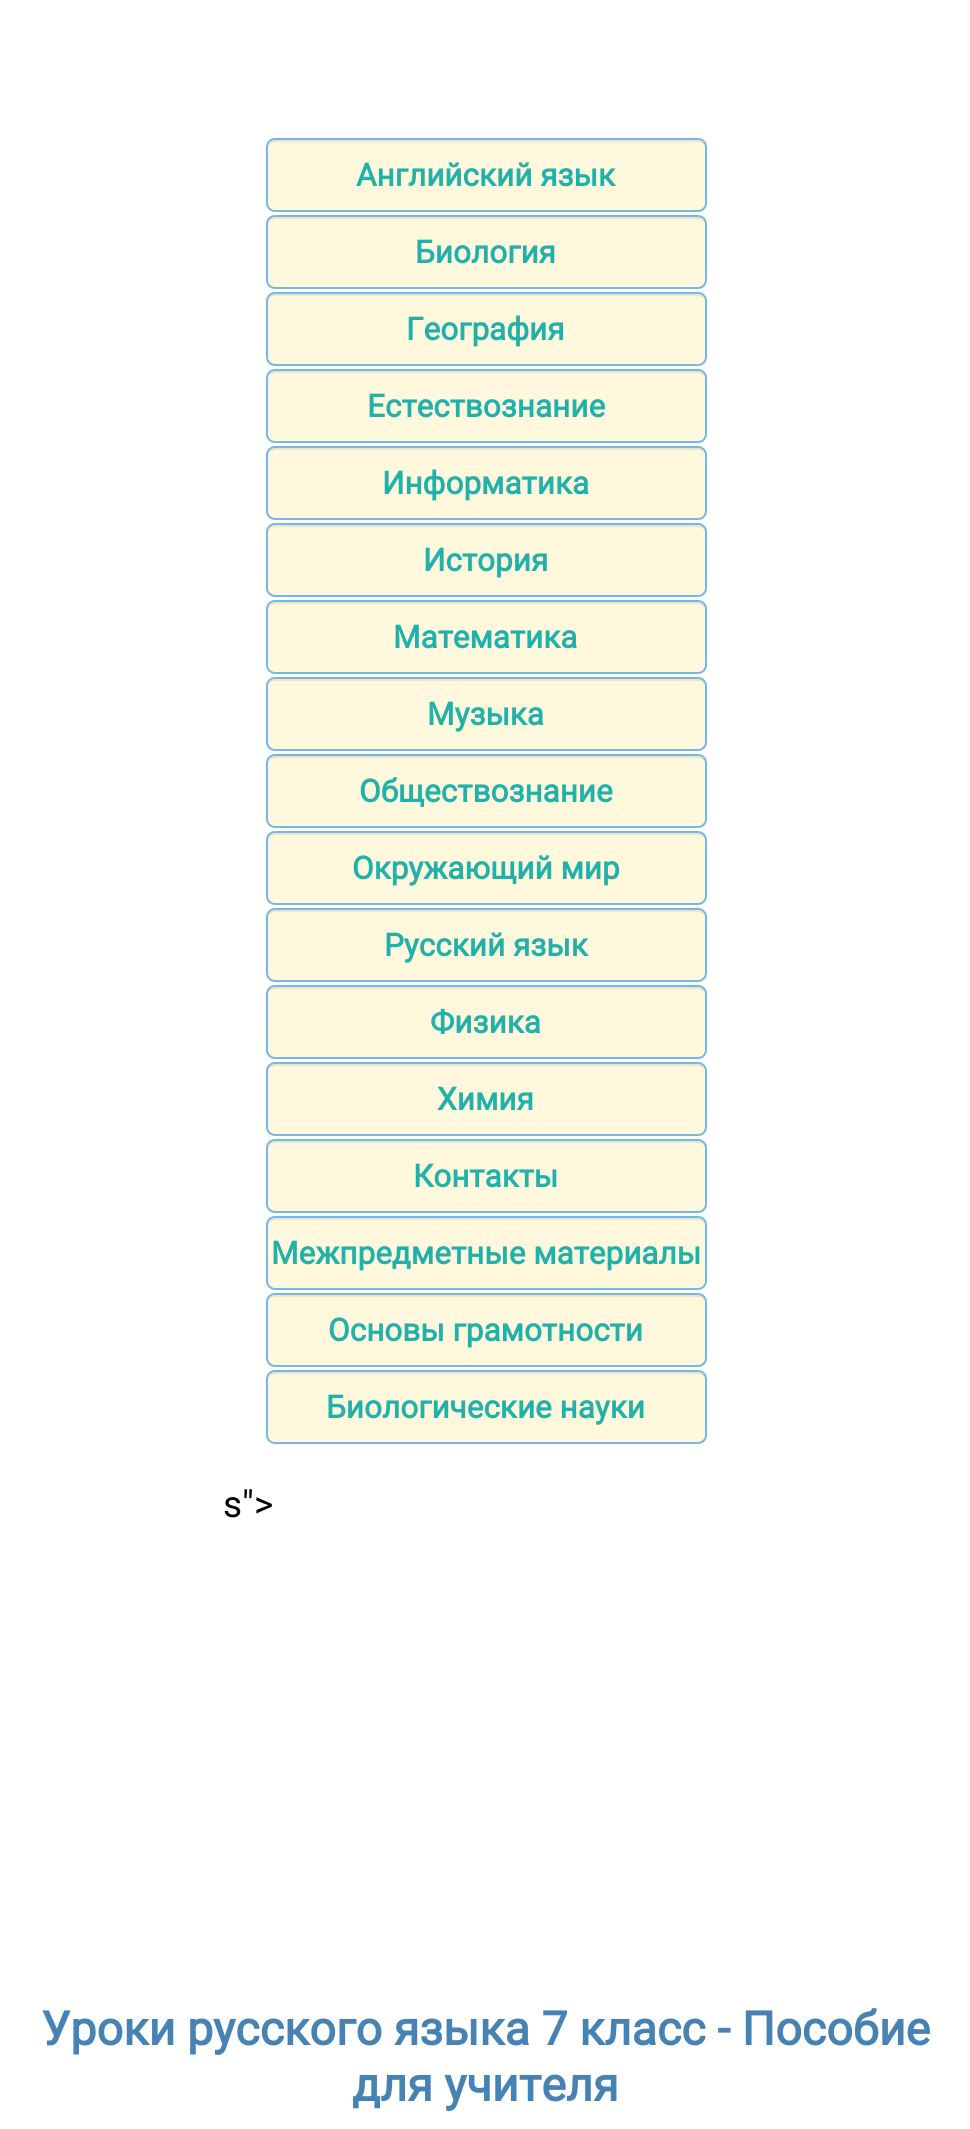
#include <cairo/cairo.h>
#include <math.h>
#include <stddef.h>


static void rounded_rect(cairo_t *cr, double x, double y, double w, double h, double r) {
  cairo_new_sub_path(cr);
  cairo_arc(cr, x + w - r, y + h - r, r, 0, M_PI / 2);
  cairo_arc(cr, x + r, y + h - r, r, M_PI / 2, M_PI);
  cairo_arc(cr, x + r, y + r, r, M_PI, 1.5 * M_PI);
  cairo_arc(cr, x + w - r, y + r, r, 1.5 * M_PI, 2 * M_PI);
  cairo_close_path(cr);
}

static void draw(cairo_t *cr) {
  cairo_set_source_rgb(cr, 1, 1, 1);
  cairo_paint(cr);
  cairo_set_source_rgb(cr, 1, 248 / 255.0, 220 / 255.0);
  rounded_rect(cr, 266, 138, 441, 74, 9);
  cairo_fill(cr);
  cairo_set_source_rgb(cr, 236 / 255.0, 229 / 255.0, 204 / 255.0);
  cairo_new_path(cr);
  cairo_move_to(cr, 275, 142);
  cairo_line_to(cr, 698, 142);
  cairo_curve_to(cr, 702, 142, 705, 145, 705, 149);
  cairo_curve_to(cr, 705, 145, 703, 140, 698, 140);
  cairo_line_to(cr, 275, 140);
  cairo_curve_to(cr, 270, 140, 268, 145, 268, 149);
  cairo_curve_to(cr, 268, 145, 271, 142, 275, 142);
  cairo_close_path(cr);
  cairo_fill(cr);
  rounded_rect(cr, 267, 139, 439, 72, 8);
  cairo_set_source_rgba(cr, 82 / 255.0, 168 / 255.0, 236 / 255.0, 0.8);
  cairo_stroke(cr);
  cairo_set_source_rgb(cr, 1, 248 / 255.0, 220 / 255.0);
  rounded_rect(cr, 266, 215, 441, 74, 9);
  cairo_fill(cr);
  cairo_set_source_rgb(cr, 236 / 255.0, 229 / 255.0, 204 / 255.0);
  cairo_new_path(cr);
  cairo_move_to(cr, 275, 219);
  cairo_line_to(cr, 698, 219);
  cairo_curve_to(cr, 702, 219, 705, 222, 705, 226);
  cairo_curve_to(cr, 705, 222, 703, 217, 698, 217);
  cairo_line_to(cr, 275, 217);
  cairo_curve_to(cr, 270, 217, 268, 222, 268, 226);
  cairo_curve_to(cr, 268, 222, 271, 219, 275, 219);
  cairo_close_path(cr);
  cairo_fill(cr);
  rounded_rect(cr, 267, 216, 439, 72, 8);
  cairo_set_source_rgba(cr, 82 / 255.0, 168 / 255.0, 236 / 255.0, 0.8);
  cairo_stroke(cr);
  cairo_set_source_rgb(cr, 1, 248 / 255.0, 220 / 255.0);
  rounded_rect(cr, 266, 292, 441, 74, 9);
  cairo_fill(cr);
  cairo_set_source_rgb(cr, 236 / 255.0, 229 / 255.0, 204 / 255.0);
  cairo_new_path(cr);
  cairo_move_to(cr, 275, 296);
  cairo_line_to(cr, 698, 296);
  cairo_curve_to(cr, 702, 296, 705, 299, 705, 303);
  cairo_curve_to(cr, 705, 299, 703, 294, 698, 294);
  cairo_line_to(cr, 275, 294);
  cairo_curve_to(cr, 270, 294, 268, 299, 268, 303);
  cairo_curve_to(cr, 268, 299, 271, 296, 275, 296);
  cairo_close_path(cr);
  cairo_fill(cr);
  rounded_rect(cr, 267, 293, 439, 72, 8);
  cairo_set_source_rgba(cr, 82 / 255.0, 168 / 255.0, 236 / 255.0, 0.8);
  cairo_stroke(cr);
  cairo_set_source_rgb(cr, 1, 248 / 255.0, 220 / 255.0);
  rounded_rect(cr, 266, 369, 441, 74, 9);
  cairo_fill(cr);
  cairo_set_source_rgb(cr, 236 / 255.0, 229 / 255.0, 204 / 255.0);
  cairo_new_path(cr);
  cairo_move_to(cr, 275, 373);
  cairo_line_to(cr, 698, 373);
  cairo_curve_to(cr, 702, 373, 705, 376, 705, 380);
  cairo_curve_to(cr, 705, 376, 703, 371, 698, 371);
  cairo_line_to(cr, 275, 371);
  cairo_curve_to(cr, 270, 371, 268, 376, 268, 380);
  cairo_curve_to(cr, 268, 376, 271, 373, 275, 373);
  cairo_close_path(cr);
  cairo_fill(cr);
  rounded_rect(cr, 267, 370, 439, 72, 8);
  cairo_set_source_rgba(cr, 82 / 255.0, 168 / 255.0, 236 / 255.0, 0.8);
  cairo_stroke(cr);
  cairo_set_source_rgb(cr, 1, 248 / 255.0, 220 / 255.0);
  rounded_rect(cr, 266, 446, 441, 74, 9);
  cairo_fill(cr);
  cairo_set_source_rgb(cr, 236 / 255.0, 229 / 255.0, 204 / 255.0);
  cairo_new_path(cr);
  cairo_move_to(cr, 275, 450);
  cairo_line_to(cr, 698, 450);
  cairo_curve_to(cr, 702, 450, 705, 453, 705, 457);
  cairo_curve_to(cr, 705, 453, 703, 448, 698, 448);
  cairo_line_to(cr, 275, 448);
  cairo_curve_to(cr, 270, 448, 268, 453, 268, 457);
  cairo_curve_to(cr, 268, 453, 271, 450, 275, 450);
  cairo_close_path(cr);
  cairo_fill(cr);
  rounded_rect(cr, 267, 447, 439, 72, 8);
  cairo_set_source_rgba(cr, 82 / 255.0, 168 / 255.0, 236 / 255.0, 0.8);
  cairo_stroke(cr);
  cairo_set_source_rgb(cr, 1, 248 / 255.0, 220 / 255.0);
  rounded_rect(cr, 266, 523, 441, 74, 9);
  cairo_fill(cr);
  cairo_set_source_rgb(cr, 236 / 255.0, 229 / 255.0, 204 / 255.0);
  cairo_new_path(cr);
  cairo_move_to(cr, 275, 527);
  cairo_line_to(cr, 698, 527);
  cairo_curve_to(cr, 702, 527, 705, 530, 705, 534);
  cairo_curve_to(cr, 705, 530, 703, 525, 698, 525);
  cairo_line_to(cr, 275, 525);
  cairo_curve_to(cr, 270, 525, 268, 530, 268, 534);
  cairo_curve_to(cr, 268, 530, 271, 527, 275, 527);
  cairo_close_path(cr);
  cairo_fill(cr);
  rounded_rect(cr, 267, 524, 439, 72, 8);
  cairo_set_source_rgba(cr, 82 / 255.0, 168 / 255.0, 236 / 255.0, 0.8);
  cairo_stroke(cr);
  cairo_set_source_rgb(cr, 1, 248 / 255.0, 220 / 255.0);
  rounded_rect(cr, 266, 600, 441, 74, 9);
  cairo_fill(cr);
  cairo_set_source_rgb(cr, 236 / 255.0, 229 / 255.0, 204 / 255.0);
  cairo_new_path(cr);
  cairo_move_to(cr, 275, 604);
  cairo_line_to(cr, 698, 604);
  cairo_curve_to(cr, 702, 604, 705, 607, 705, 611);
  cairo_curve_to(cr, 705, 607, 703, 602, 698, 602);
  cairo_line_to(cr, 275, 602);
  cairo_curve_to(cr, 270, 602, 268, 607, 268, 611);
  cairo_curve_to(cr, 268, 607, 271, 604, 275, 604);
  cairo_close_path(cr);
  cairo_fill(cr);
  rounded_rect(cr, 267, 601, 439, 72, 8);
  cairo_set_source_rgba(cr, 82 / 255.0, 168 / 255.0, 236 / 255.0, 0.8);
  cairo_stroke(cr);
  cairo_set_source_rgb(cr, 1, 248 / 255.0, 220 / 255.0);
  rounded_rect(cr, 266, 677, 441, 74, 9);
  cairo_fill(cr);
  cairo_set_source_rgb(cr, 236 / 255.0, 229 / 255.0, 204 / 255.0);
  cairo_new_path(cr);
  cairo_move_to(cr, 275, 681);
  cairo_line_to(cr, 698, 681);
  cairo_curve_to(cr, 702, 681, 705, 684, 705, 688);
  cairo_curve_to(cr, 705, 684, 703, 679, 698, 679);
  cairo_line_to(cr, 275, 679);
  cairo_curve_to(cr, 270, 679, 268, 684, 268, 688);
  cairo_curve_to(cr, 268, 684, 271, 681, 275, 681);
  cairo_close_path(cr);
  cairo_fill(cr);
  rounded_rect(cr, 267, 678, 439, 72, 8);
  cairo_set_source_rgba(cr, 82 / 255.0, 168 / 255.0, 236 / 255.0, 0.8);
  cairo_stroke(cr);
  cairo_set_source_rgb(cr, 1, 248 / 255.0, 220 / 255.0);
  rounded_rect(cr, 266, 754, 441, 74, 9);
  cairo_fill(cr);
  cairo_set_source_rgb(cr, 236 / 255.0, 229 / 255.0, 204 / 255.0);
  cairo_new_path(cr);
  cairo_move_to(cr, 275, 758);
  cairo_line_to(cr, 698, 758);
  cairo_curve_to(cr, 702, 758, 705, 761, 705, 765);
  cairo_curve_to(cr, 705, 761, 703, 756, 698, 756);
  cairo_line_to(cr, 275, 756);
  cairo_curve_to(cr, 270, 756, 268, 761, 268, 765);
  cairo_curve_to(cr, 268, 761, 271, 758, 275, 758);
  cairo_close_path(cr);
  cairo_fill(cr);
  rounded_rect(cr, 267, 755, 439, 72, 8);
  cairo_set_source_rgba(cr, 82 / 255.0, 168 / 255.0, 236 / 255.0, 0.8);
  cairo_stroke(cr);
  cairo_set_source_rgb(cr, 1, 248 / 255.0, 220 / 255.0);
  rounded_rect(cr, 266, 831, 441, 74, 9);
  cairo_fill(cr);
  cairo_set_source_rgb(cr, 236 / 255.0, 229 / 255.0, 204 / 255.0);
  cairo_new_path(cr);
  cairo_move_to(cr, 275, 835);
  cairo_line_to(cr, 698, 835);
  cairo_curve_to(cr, 702, 835, 705, 838, 705, 842);
  cairo_curve_to(cr, 705, 838, 703, 833, 698, 833);
  cairo_line_to(cr, 275, 833);
  cairo_curve_to(cr, 270, 833, 268, 838, 268, 842);
  cairo_curve_to(cr, 268, 838, 271, 835, 275, 835);
  cairo_close_path(cr);
  cairo_fill(cr);
  rounded_rect(cr, 267, 832, 439, 72, 8);
  cairo_set_source_rgba(cr, 82 / 255.0, 168 / 255.0, 236 / 255.0, 0.8);
  cairo_stroke(cr);
  cairo_set_source_rgb(cr, 1, 248 / 255.0, 220 / 255.0);
  rounded_rect(cr, 266, 908, 441, 74, 9);
  cairo_fill(cr);
  cairo_set_source_rgb(cr, 236 / 255.0, 229 / 255.0, 204 / 255.0);
  cairo_new_path(cr);
  cairo_move_to(cr, 275, 912);
  cairo_line_to(cr, 698, 912);
  cairo_curve_to(cr, 702, 912, 705, 915, 705, 919);
  cairo_curve_to(cr, 705, 915, 703, 910, 698, 910);
  cairo_line_to(cr, 275, 910);
  cairo_curve_to(cr, 270, 910, 268, 915, 268, 919);
  cairo_curve_to(cr, 268, 915, 271, 912, 275, 912);
  cairo_close_path(cr);
  cairo_fill(cr);
  rounded_rect(cr, 267, 909, 439, 72, 8);
  cairo_set_source_rgba(cr, 82 / 255.0, 168 / 255.0, 236 / 255.0, 0.8);
  cairo_stroke(cr);
  cairo_set_source_rgb(cr, 1, 248 / 255.0, 220 / 255.0);
  rounded_rect(cr, 266, 985, 441, 74, 9);
  cairo_fill(cr);
  cairo_set_source_rgb(cr, 236 / 255.0, 229 / 255.0, 204 / 255.0);
  cairo_new_path(cr);
  cairo_move_to(cr, 275, 989);
  cairo_line_to(cr, 698, 989);
  cairo_curve_to(cr, 702, 989, 705, 992, 705, 996);
  cairo_curve_to(cr, 705, 992, 703, 987, 698, 987);
  cairo_line_to(cr, 275, 987);
  cairo_curve_to(cr, 270, 987, 268, 992, 268, 996);
  cairo_curve_to(cr, 268, 992, 271, 989, 275, 989);
  cairo_close_path(cr);
  cairo_fill(cr);
  rounded_rect(cr, 267, 986, 439, 72, 8);
  cairo_set_source_rgba(cr, 82 / 255.0, 168 / 255.0, 236 / 255.0, 0.8);
  cairo_stroke(cr);
  cairo_set_source_rgb(cr, 1, 248 / 255.0, 220 / 255.0);
  rounded_rect(cr, 266, 1062, 441, 74, 9);
  cairo_fill(cr);
  cairo_set_source_rgb(cr, 236 / 255.0, 229 / 255.0, 204 / 255.0);
  cairo_new_path(cr);
  cairo_move_to(cr, 275, 1066);
  cairo_line_to(cr, 698, 1066);
  cairo_curve_to(cr, 702, 1066, 705, 1069, 705, 1073);
  cairo_curve_to(cr, 705, 1069, 703, 1064, 698, 1064);
  cairo_line_to(cr, 275, 1064);
  cairo_curve_to(cr, 270, 1064, 268, 1069, 268, 1073);
  cairo_curve_to(cr, 268, 1069, 271, 1066, 275, 1066);
  cairo_close_path(cr);
  cairo_fill(cr);
  rounded_rect(cr, 267, 1063, 439, 72, 8);
  cairo_set_source_rgba(cr, 82 / 255.0, 168 / 255.0, 236 / 255.0, 0.8);
  cairo_stroke(cr);
  cairo_set_source_rgb(cr, 1, 248 / 255.0, 220 / 255.0);
  rounded_rect(cr, 266, 1139, 441, 74, 9);
  cairo_fill(cr);
  cairo_set_source_rgb(cr, 236 / 255.0, 229 / 255.0, 204 / 255.0);
  cairo_new_path(cr);
  cairo_move_to(cr, 275, 1143);
  cairo_line_to(cr, 698, 1143);
  cairo_curve_to(cr, 702, 1143, 705, 1146, 705, 1150);
  cairo_curve_to(cr, 705, 1146, 703, 1141, 698, 1141);
  cairo_line_to(cr, 275, 1141);
  cairo_curve_to(cr, 270, 1141, 268, 1146, 268, 1150);
  cairo_curve_to(cr, 268, 1146, 271, 1143, 275, 1143);
  cairo_close_path(cr);
  cairo_fill(cr);
  rounded_rect(cr, 267, 1140, 439, 72, 8);
  cairo_set_source_rgba(cr, 82 / 255.0, 168 / 255.0, 236 / 255.0, 0.8);
  cairo_stroke(cr);
  cairo_set_source_rgb(cr, 1, 248 / 255.0, 220 / 255.0);
  rounded_rect(cr, 266, 1216, 441, 74, 9);
  cairo_fill(cr);
  cairo_set_source_rgb(cr, 236 / 255.0, 229 / 255.0, 204 / 255.0);
  cairo_new_path(cr);
  cairo_move_to(cr, 275, 1220);
  cairo_line_to(cr, 698, 1220);
  cairo_curve_to(cr, 702, 1220, 705, 1223, 705, 1227);
  cairo_curve_to(cr, 705, 1223, 703, 1218, 698, 1218);
  cairo_line_to(cr, 275, 1218);
  cairo_curve_to(cr, 270, 1218, 268, 1223, 268, 1227);
  cairo_curve_to(cr, 268, 1223, 271, 1220, 275, 1220);
  cairo_close_path(cr);
  cairo_fill(cr);
  rounded_rect(cr, 267, 1217, 439, 72, 8);
  cairo_set_source_rgba(cr, 82 / 255.0, 168 / 255.0, 236 / 255.0, 0.8);
  cairo_stroke(cr);
  cairo_set_source_rgb(cr, 1, 248 / 255.0, 220 / 255.0);
  rounded_rect(cr, 266, 1293, 441, 74, 9);
  cairo_fill(cr);
  cairo_set_source_rgb(cr, 236 / 255.0, 229 / 255.0, 204 / 255.0);
  cairo_new_path(cr);
  cairo_move_to(cr, 275, 1297);
  cairo_line_to(cr, 698, 1297);
  cairo_curve_to(cr, 702, 1297, 705, 1300, 705, 1304);
  cairo_curve_to(cr, 705, 1300, 703, 1295, 698, 1295);
  cairo_line_to(cr, 275, 1295);
  cairo_curve_to(cr, 270, 1295, 268, 1300, 268, 1304);
  cairo_curve_to(cr, 268, 1300, 271, 1297, 275, 1297);
  cairo_close_path(cr);
  cairo_fill(cr);
  rounded_rect(cr, 267, 1294, 439, 72, 8);
  cairo_set_source_rgba(cr, 82 / 255.0, 168 / 255.0, 236 / 255.0, 0.8);
  cairo_stroke(cr);
  cairo_set_source_rgb(cr, 1, 248 / 255.0, 220 / 255.0);
  rounded_rect(cr, 266, 1370, 441, 74, 9);
  cairo_fill(cr);
  cairo_set_source_rgb(cr, 236 / 255.0, 229 / 255.0, 204 / 255.0);
  cairo_new_path(cr);
  cairo_move_to(cr, 275, 1374);
  cairo_line_to(cr, 698, 1374);
  cairo_curve_to(cr, 702, 1374, 705, 1377, 705, 1381);
  cairo_curve_to(cr, 705, 1377, 703, 1372, 698, 1372);
  cairo_line_to(cr, 275, 1372);
  cairo_curve_to(cr, 270, 1372, 268, 1377, 268, 1381);
  cairo_curve_to(cr, 268, 1377, 271, 1374, 275, 1374);
  cairo_close_path(cr);
  cairo_fill(cr);
  rounded_rect(cr, 267, 1371, 439, 72, 8);
  cairo_set_source_rgba(cr, 82 / 255.0, 168 / 255.0, 236 / 255.0, 0.8);
  cairo_stroke(cr);
  cairo_select_font_face(cr, "Roboto", CAIRO_FONT_SLANT_NORMAL, CAIRO_FONT_WEIGHT_BOLD);
  cairo_set_font_size(cr, 31.5);
  cairo_set_source_rgb(cr, 32 / 255.0, 178 / 255.0, 170 / 255.0);
  cairo_move_to(cr, 356, 186);
  cairo_show_text(cr, "Английский язык");
  cairo_move_to(cr, 415, 263);
  cairo_show_text(cr, "Биология");
  cairo_move_to(cr, 406, 340);
  cairo_show_text(cr, "География");
  cairo_move_to(cr, 367, 417);
  cairo_show_text(cr, "Естествознание");
  cairo_move_to(cr, 382, 494);
  cairo_show_text(cr, "Информатика");
  cairo_move_to(cr, 423, 571);
  cairo_show_text(cr, "История");
  cairo_move_to(cr, 393, 648);
  cairo_show_text(cr, "Математика");
  cairo_move_to(cr, 427, 725);
  cairo_show_text(cr, "Музыка");
  cairo_move_to(cr, 359, 802);
  cairo_show_text(cr, "Обществознание");
  cairo_move_to(cr, 352, 879);
  cairo_show_text(cr, "Окружающий мир");
  cairo_move_to(cr, 384, 956);
  cairo_show_text(cr, "Русский язык");
  cairo_move_to(cr, 430, 1033);
  cairo_show_text(cr, "Физика");
  cairo_move_to(cr, 437, 1110);
  cairo_show_text(cr, "Химия");
  cairo_move_to(cr, 413, 1187);
  cairo_show_text(cr, "Контакты");
  cairo_move_to(cr, 271, 1264);
  cairo_show_text(cr, "Межпредметные материалы");
  cairo_move_to(cr, 328, 1341);
  cairo_show_text(cr, "Основы грамотности");
  cairo_move_to(cr, 326, 1418);
  cairo_show_text(cr, "Биологические науки");
  cairo_select_font_face(cr, "Roboto", CAIRO_FONT_SLANT_NORMAL, CAIRO_FONT_WEIGHT_NORMAL);
  cairo_set_font_size(cr, 37);
  cairo_set_source_rgb(cr, 0, 0, 0);
  cairo_move_to(cr, 223, 1517);
  cairo_show_text(cr, "s\">");
  cairo_select_font_face(cr, "Roboto", CAIRO_FONT_SLANT_NORMAL, CAIRO_FONT_WEIGHT_BOLD);
  cairo_set_font_size(cr, 46.7);
  cairo_set_source_rgb(cr, 70 / 255.0, 130 / 255.0, 180 / 255.0);
  cairo_move_to(cr, 41, 2045);
  cairo_show_text(cr, "Уроки русского языка 7 класс - Пособие");
  cairo_move_to(cr, 352, 2101);
  cairo_show_text(cr, "для учителя");
}

int main(void) {
  cairo_surface_t *surface = cairo_image_surface_create(CAIRO_FORMAT_RGB24, 970, 2129);
  cairo_t *cr = cairo_create(surface);
  cairo_font_options_t *options = cairo_font_options_create();
  cairo_font_options_set_hint_metrics(options, CAIRO_HINT_METRICS_OFF);
  cairo_font_options_set_hint_style(options, CAIRO_HINT_STYLE_NONE);
  cairo_set_font_options(cr, options);
  cairo_set_miter_limit(cr, 4);
  draw(cr);
  cairo_surface_write_to_png(surface, "out.png");
  cairo_font_options_destroy(options);
  cairo_destroy(cr);
  cairo_surface_destroy(surface);
  return 0;
}
